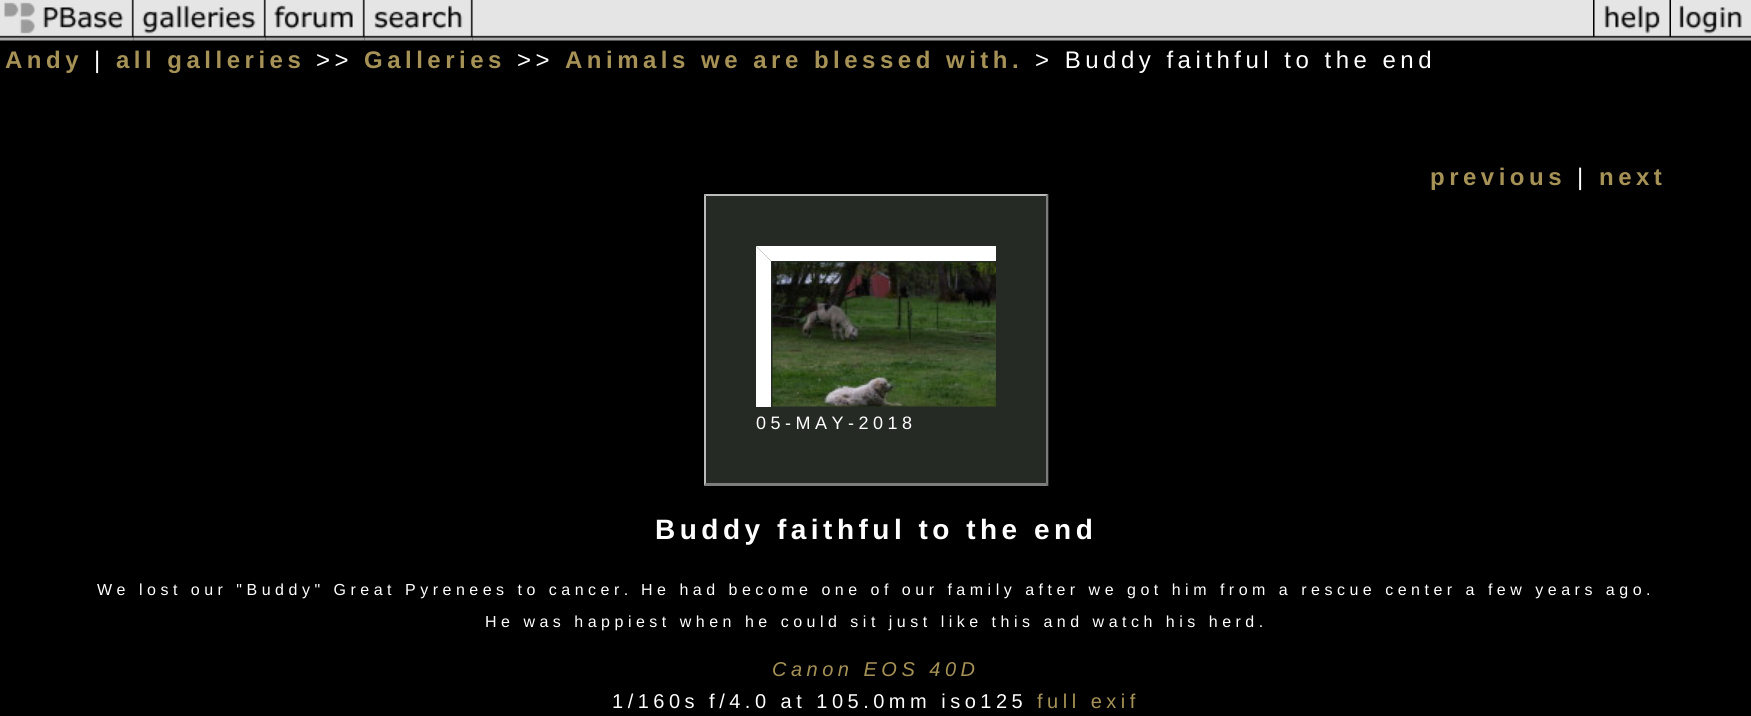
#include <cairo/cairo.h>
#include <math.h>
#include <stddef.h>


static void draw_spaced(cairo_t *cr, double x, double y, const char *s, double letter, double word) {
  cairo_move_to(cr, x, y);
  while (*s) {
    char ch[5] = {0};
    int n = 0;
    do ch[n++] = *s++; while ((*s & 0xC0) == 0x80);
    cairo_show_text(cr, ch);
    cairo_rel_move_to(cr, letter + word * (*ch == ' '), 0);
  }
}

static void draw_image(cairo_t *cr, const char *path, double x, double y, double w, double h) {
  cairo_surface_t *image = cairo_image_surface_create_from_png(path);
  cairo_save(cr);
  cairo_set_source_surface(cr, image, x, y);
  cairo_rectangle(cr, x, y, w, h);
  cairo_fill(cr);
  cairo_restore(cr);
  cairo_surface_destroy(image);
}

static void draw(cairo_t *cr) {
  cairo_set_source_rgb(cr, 0, 0, 0);
  cairo_paint(cr);
  draw_image(cr, "images/1.png", 0, 0, 134, 41);
  draw_image(cr, "images/2.png", 133, 0, 133, 41);
  draw_image(cr, "images/3.png", 265, 0, 100, 41);
  draw_image(cr, "images/4.png", 364, 0, 109, 41);
  draw_image(cr, "images/5.png", 472, 0, 1121, 41);
  draw_image(cr, "images/6.png", 1593, 0, 78, 41);
  draw_image(cr, "images/7.png", 1671, 0, 80, 41);
  cairo_set_source_rgb(cr, 37 / 255.0, 42 / 255.0, 36 / 255.0);
  cairo_rectangle(cr, 704, 194, 345, 292);
  cairo_fill(cr);
  cairo_set_source_rgb(cr, 187 / 255.0, 187 / 255.0, 187 / 255.0);
  cairo_new_path(cr);
  cairo_move_to(cr, 704, 194);
  cairo_line_to(cr, 1048, 194);
  cairo_line_to(cr, 1046, 196);
  cairo_line_to(cr, 706, 196);
  cairo_close_path(cr);
  cairo_fill(cr);
  cairo_set_source_rgb(cr, 125 / 255.0, 125 / 255.0, 125 / 255.0);
  cairo_new_path(cr);
  cairo_move_to(cr, 1048, 194);
  cairo_line_to(cr, 1048, 486);
  cairo_line_to(cr, 1046, 483);
  cairo_line_to(cr, 1046, 196);
  cairo_close_path(cr);
  cairo_fill(cr);
  cairo_new_path(cr);
  cairo_move_to(cr, 1048, 486);
  cairo_line_to(cr, 704, 486);
  cairo_line_to(cr, 706, 483);
  cairo_line_to(cr, 1046, 483);
  cairo_close_path(cr);
  cairo_fill(cr);
  cairo_set_source_rgb(cr, 187 / 255.0, 187 / 255.0, 187 / 255.0);
  cairo_new_path(cr);
  cairo_move_to(cr, 704, 486);
  cairo_line_to(cr, 704, 194);
  cairo_line_to(cr, 706, 196);
  cairo_line_to(cr, 706, 483);
  cairo_close_path(cr);
  cairo_fill(cr);
  cairo_save(cr);
  cairo_rectangle(cr, 756, 246, 240, 161);
  cairo_clip(cr);
  cairo_set_source_rgb(cr, 1, 1, 1);
  cairo_new_path(cr);
  cairo_move_to(cr, 756, 246);
  cairo_line_to(cr, 1022, 246);
  cairo_line_to(cr, 1006, 261);
  cairo_line_to(cr, 771, 261);
  cairo_close_path(cr);
  cairo_fill(cr);
  cairo_new_path(cr);
  cairo_move_to(cr, 756, 435);
  cairo_line_to(cr, 756, 246);
  cairo_line_to(cr, 771, 261);
  cairo_line_to(cr, 771, 420);
  cairo_close_path(cr);
  cairo_fill(cr);
  cairo_restore(cr);
  draw_image(cr, "images/8.png", 772, 262, 224, 145);
  cairo_select_font_face(cr, "Liberation Sans", CAIRO_FONT_SLANT_NORMAL, CAIRO_FONT_WEIGHT_BOLD);
  cairo_set_font_size(cr, 24);
  cairo_set_source_rgb(cr, 166 / 255.0, 146 / 255.0, 86 / 255.0);
  draw_spaced(cr, 5, 68, "Andy", 4.5, 0);
  cairo_select_font_face(cr, "Liberation Sans", CAIRO_FONT_SLANT_NORMAL, CAIRO_FONT_WEIGHT_NORMAL);
  cairo_set_source_rgb(cr, 1, 1, 1);
  draw_spaced(cr, 94, 68, "|", 4.5, 0);
  cairo_select_font_face(cr, "Liberation Sans", CAIRO_FONT_SLANT_NORMAL, CAIRO_FONT_WEIGHT_BOLD);
  cairo_set_source_rgb(cr, 166 / 255.0, 146 / 255.0, 86 / 255.0);
  draw_spaced(cr, 116, 68, "all galleries", 4.5, 0);
  cairo_select_font_face(cr, "Liberation Sans", CAIRO_FONT_SLANT_NORMAL, CAIRO_FONT_WEIGHT_NORMAL);
  cairo_set_source_rgb(cr, 1, 1, 1);
  draw_spaced(cr, 316, 68, ">>", 4.5, 0);
  cairo_select_font_face(cr, "Liberation Sans", CAIRO_FONT_SLANT_NORMAL, CAIRO_FONT_WEIGHT_BOLD);
  cairo_set_source_rgb(cr, 166 / 255.0, 146 / 255.0, 86 / 255.0);
  draw_spaced(cr, 364, 68, "Galleries", 4.5, 0);
  cairo_select_font_face(cr, "Liberation Sans", CAIRO_FONT_SLANT_NORMAL, CAIRO_FONT_WEIGHT_NORMAL);
  cairo_set_source_rgb(cr, 1, 1, 1);
  draw_spaced(cr, 517, 68, ">>", 4.5, 0);
  cairo_select_font_face(cr, "Liberation Sans", CAIRO_FONT_SLANT_NORMAL, CAIRO_FONT_WEIGHT_BOLD);
  cairo_set_source_rgb(cr, 166 / 255.0, 146 / 255.0, 86 / 255.0);
  draw_spaced(cr, 565, 68, "Animals we are blessed with.", 4.5, 0);
  cairo_select_font_face(cr, "Liberation Sans", CAIRO_FONT_SLANT_NORMAL, CAIRO_FONT_WEIGHT_NORMAL);
  cairo_set_source_rgb(cr, 1, 1, 1);
  draw_spaced(cr, 1035, 68, "> Buddy faithful to the end", 4.5, 0);
  cairo_select_font_face(cr, "Liberation Sans", CAIRO_FONT_SLANT_NORMAL, CAIRO_FONT_WEIGHT_BOLD);
  cairo_set_source_rgb(cr, 166 / 255.0, 146 / 255.0, 86 / 255.0);
  draw_spaced(cr, 1430, 185, "previous", 4.5, 0);
  cairo_select_font_face(cr, "Liberation Sans", CAIRO_FONT_SLANT_NORMAL, CAIRO_FONT_WEIGHT_NORMAL);
  cairo_set_source_rgb(cr, 1, 1, 1);
  draw_spaced(cr, 1577, 185, "|", 4.5, 0);
  cairo_select_font_face(cr, "Liberation Sans", CAIRO_FONT_SLANT_NORMAL, CAIRO_FONT_WEIGHT_BOLD);
  cairo_set_source_rgb(cr, 166 / 255.0, 146 / 255.0, 86 / 255.0);
  draw_spaced(cr, 1599, 185, "next", 4.5, 0);
  cairo_select_font_face(cr, "Liberation Sans", CAIRO_FONT_SLANT_NORMAL, CAIRO_FONT_WEIGHT_NORMAL);
  cairo_set_font_size(cr, 18);
  cairo_set_source_rgb(cr, 1, 1, 1);
  draw_spaced(cr, 756, 429, "05-MAY-2018", 4.5, 0);
  cairo_select_font_face(cr, "Liberation Sans", CAIRO_FONT_SLANT_NORMAL, CAIRO_FONT_WEIGHT_BOLD);
  cairo_set_font_size(cr, 28);
  draw_spaced(cr, 655, 539, "Buddy faithful to the end", 4.5, 0);
  cairo_select_font_face(cr, "Liberation Sans", CAIRO_FONT_SLANT_NORMAL, CAIRO_FONT_WEIGHT_NORMAL);
  cairo_set_font_size(cr, 16);
  draw_spaced(cr, 97, 595, "We lost our \"Buddy\" Great Pyrenees to cancer.", 4.5, 0);
  draw_spaced(cr, 641, 595, "He had become one of our family after we got him from a rescue center a few years ago.", 4.5, 0);
  draw_spaced(cr, 485, 627, "He was happiest when he could sit just like this and watch his herd.", 4.5, 0);
  cairo_select_font_face(cr, "Liberation Sans", CAIRO_FONT_SLANT_ITALIC, CAIRO_FONT_WEIGHT_NORMAL);
  cairo_set_font_size(cr, 20);
  cairo_set_source_rgb(cr, 166 / 255.0, 146 / 255.0, 86 / 255.0);
  draw_spaced(cr, 772, 676, "Canon EOS 40D", 4.5, 0);
  cairo_select_font_face(cr, "Liberation Sans", CAIRO_FONT_SLANT_NORMAL, CAIRO_FONT_WEIGHT_NORMAL);
  cairo_set_source_rgb(cr, 1, 1, 1);
  draw_spaced(cr, 612, 708, "1/160s f/4.0 at 105.0mm iso125", 4.5, 0);
  cairo_set_source_rgb(cr, 166 / 255.0, 146 / 255.0, 86 / 255.0);
  draw_spaced(cr, 1037, 708, "full exif", 4.5, 0);
}

int main(void) {
  cairo_surface_t *surface = cairo_image_surface_create(CAIRO_FORMAT_RGB24, 1751, 716);
  cairo_t *cr = cairo_create(surface);
  cairo_font_options_t *options = cairo_font_options_create();
  cairo_font_options_set_hint_metrics(options, CAIRO_HINT_METRICS_OFF);
  cairo_font_options_set_hint_style(options, CAIRO_HINT_STYLE_NONE);
  cairo_set_font_options(cr, options);
  cairo_set_miter_limit(cr, 4);
  draw(cr);
  cairo_surface_write_to_png(surface, "out.png");
  cairo_font_options_destroy(options);
  cairo_destroy(cr);
  cairo_surface_destroy(surface);
  return 0;
}
